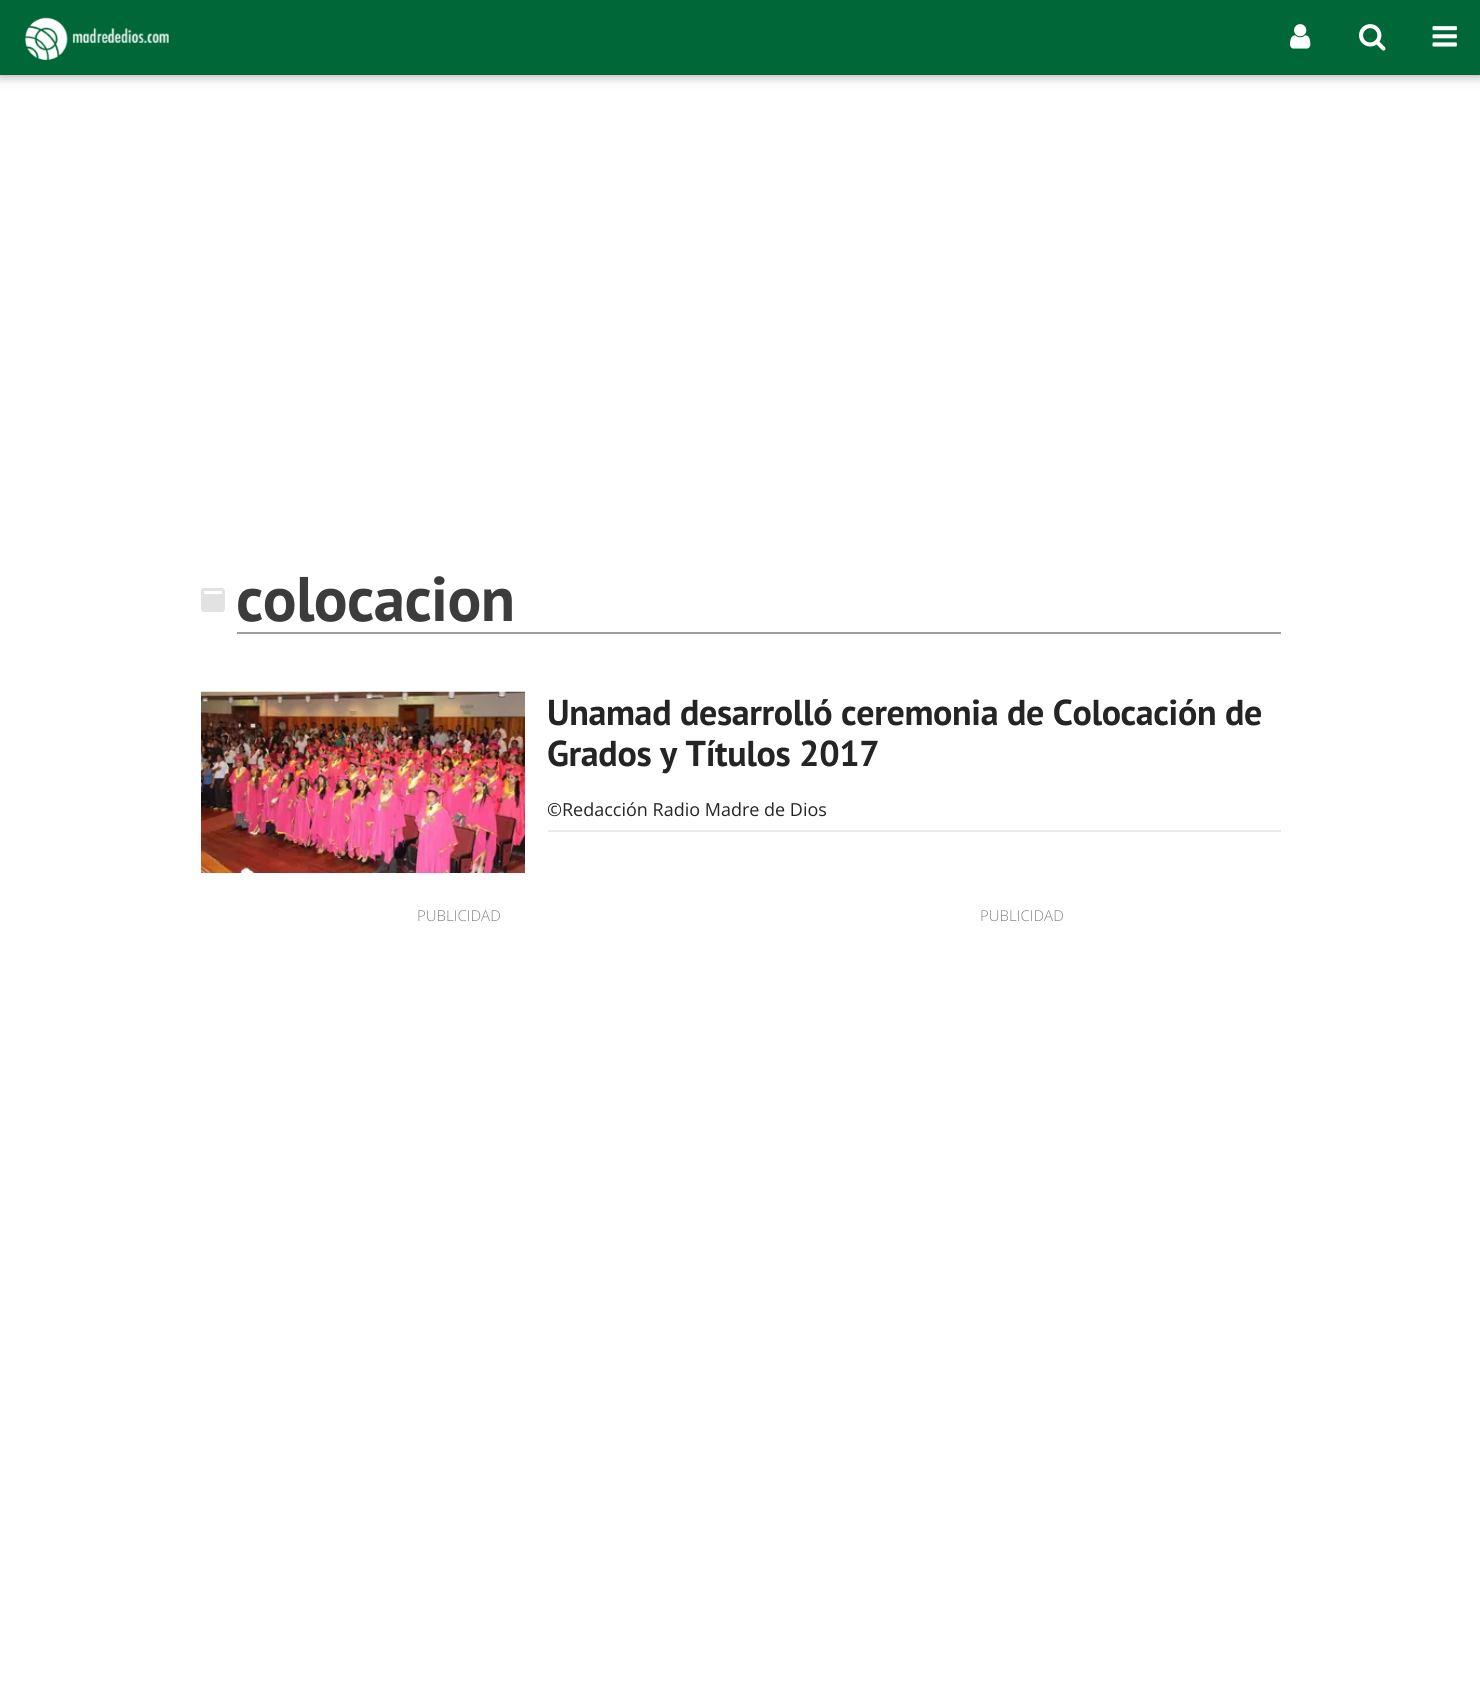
#include <cairo/cairo.h>
#include <math.h>
#include <stddef.h>


static void draw_spaced(cairo_t *cr, double x, double y, const char *s, double letter, double word) {
  cairo_move_to(cr, x, y);
  while (*s) {
    char ch[5] = {0};
    int n = 0;
    do ch[n++] = *s++; while ((*s & 0xC0) == 0x80);
    cairo_show_text(cr, ch);
    cairo_rel_move_to(cr, letter + word * (*ch == ' '), 0);
  }
}

static void rounded_rect(cairo_t *cr, double x, double y, double w, double h, double r) {
  cairo_new_sub_path(cr);
  cairo_arc(cr, x + w - r, y + h - r, r, 0, M_PI / 2);
  cairo_arc(cr, x + r, y + h - r, r, M_PI / 2, M_PI);
  cairo_arc(cr, x + r, y + r, r, M_PI, 1.5 * M_PI);
  cairo_arc(cr, x + w - r, y + r, r, 1.5 * M_PI, 2 * M_PI);
  cairo_close_path(cr);
}

static void draw_shadow(cairo_t *cr, double x, double y, double w, double h, double r, double blur, double alpha) {
  cairo_push_group_with_content(cr, CAIRO_CONTENT_ALPHA);
  cairo_set_operator(cr, CAIRO_OPERATOR_SOURCE);
  for (int i = 15; i >= -15 && fmin(w, h) + blur * i / 3 > 0; i -= 2) {
    double e = blur * i / 6;
    cairo_set_source_rgba(cr, 0, 0, 0, alpha * erfc((i - 1) / 8.5) / 2);
    rounded_rect(cr, x - e, y - e, w + 2 * e, h + 2 * e, fmax(0, fmin(r + e + blur * .6, fmin(w, h) / 2 + e)));
    cairo_fill(cr);
  }
  cairo_pattern_t *soft = cairo_pop_group(cr);
  cairo_mask(cr, soft);
  cairo_pattern_destroy(soft);
}

static void draw_image(cairo_t *cr, const char *path, double x, double y, double w, double h) {
  cairo_surface_t *image = cairo_image_surface_create_from_png(path);
  cairo_save(cr);
  cairo_set_source_surface(cr, image, x, y);
  cairo_rectangle(cr, x, y, w, h);
  cairo_fill(cr);
  cairo_restore(cr);
  cairo_surface_destroy(image);
}

static void draw(cairo_t *cr) {
  cairo_set_source_rgb(cr, 1, 1, 1);
  cairo_paint(cr);
  cairo_set_source_rgb(cr, 0, 0, 0);
  draw_shadow(cr, 0, 0, 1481, 75, 0, 6, 0.4);
  cairo_set_source_rgb(cr, 0, 104 / 255.0, 56 / 255.0);
  cairo_rectangle(cr, 0, 0, 1480, 75);
  cairo_fill(cr);
  draw_image(cr, "images/1.png", 25, 17, 144, 43);
  draw_image(cr, "images/2.png", 1290, 24, 21, 25);
  draw_image(cr, "images/3.png", 1359, 24, 27, 27);
  draw_image(cr, "images/4.png", 1432, 26, 25, 21);
  rounded_rect(cr, 202.5, 589.5, 21, 21, 1.5);
  cairo_set_source_rgb(cr, 226 / 255.0, 226 / 255.0, 226 / 255.0);
  cairo_set_line_width(cr, 3);
  cairo_stroke(cr);
  cairo_rectangle(cr, 204, 594, 18, 15);
  cairo_fill(cr);
  cairo_set_source_rgb(cr, 158 / 255.0, 158 / 255.0, 158 / 255.0);
  cairo_rectangle(cr, 237, 632, 1044, 2);
  cairo_fill(cr);
  draw_image(cr, "images/5.png", 201, 691, 324, 182);
  cairo_set_source_rgb(cr, 234 / 255.0, 234 / 255.0, 234 / 255.0);
  cairo_rectangle(cr, 548, 830, 733, 2);
  cairo_fill(cr);
  cairo_select_font_face(cr, "PT Sans", CAIRO_FONT_SLANT_NORMAL, CAIRO_FONT_WEIGHT_BOLD);
  cairo_set_font_size(cr, 63);
  cairo_set_source_rgb(cr, 60 / 255.0, 60 / 255.0, 60 / 255.0);
  draw_spaced(cr, 236, 621, "colocacion", -0.6, 0);
  cairo_set_font_size(cr, 36);
  cairo_set_source_rgb(cr, 36 / 255.0, 36 / 255.0, 36 / 255.0);
  draw_spaced(cr, 547, 725, "Unamad desarrolló ceremonia de Colocación de", -0.35, 0);
  draw_spaced(cr, 547, 766, "Grados y Títulos 2017", -0.35, 0);
  cairo_select_font_face(cr, "Open Sans", CAIRO_FONT_SLANT_NORMAL, CAIRO_FONT_WEIGHT_NORMAL);
  cairo_set_font_size(cr, 18);
  cairo_move_to(cr, 547, 816);
  cairo_show_text(cr, "©Redacción Radio Madre de Dios");
  cairo_select_font_face(cr, "Open Sans Light", CAIRO_FONT_SLANT_NORMAL, CAIRO_FONT_WEIGHT_NORMAL);
  cairo_set_font_size(cr, 15);
  cairo_set_source_rgb(cr, 131 / 255.0, 131 / 255.0, 131 / 255.0);
  cairo_move_to(cr, 417, 921);
  cairo_show_text(cr, "PUBLICIDAD");
  cairo_move_to(cr, 980, 921);
  cairo_show_text(cr, "PUBLICIDAD");
}

int main(void) {
  cairo_surface_t *surface = cairo_image_surface_create(CAIRO_FORMAT_RGB24, 1480, 1682);
  cairo_t *cr = cairo_create(surface);
  cairo_font_options_t *options = cairo_font_options_create();
  cairo_font_options_set_hint_metrics(options, CAIRO_HINT_METRICS_OFF);
  cairo_font_options_set_hint_style(options, CAIRO_HINT_STYLE_NONE);
  cairo_set_font_options(cr, options);
  cairo_set_miter_limit(cr, 4);
  draw(cr);
  cairo_surface_write_to_png(surface, "out.png");
  cairo_font_options_destroy(options);
  cairo_destroy(cr);
  cairo_surface_destroy(surface);
  return 0;
}
